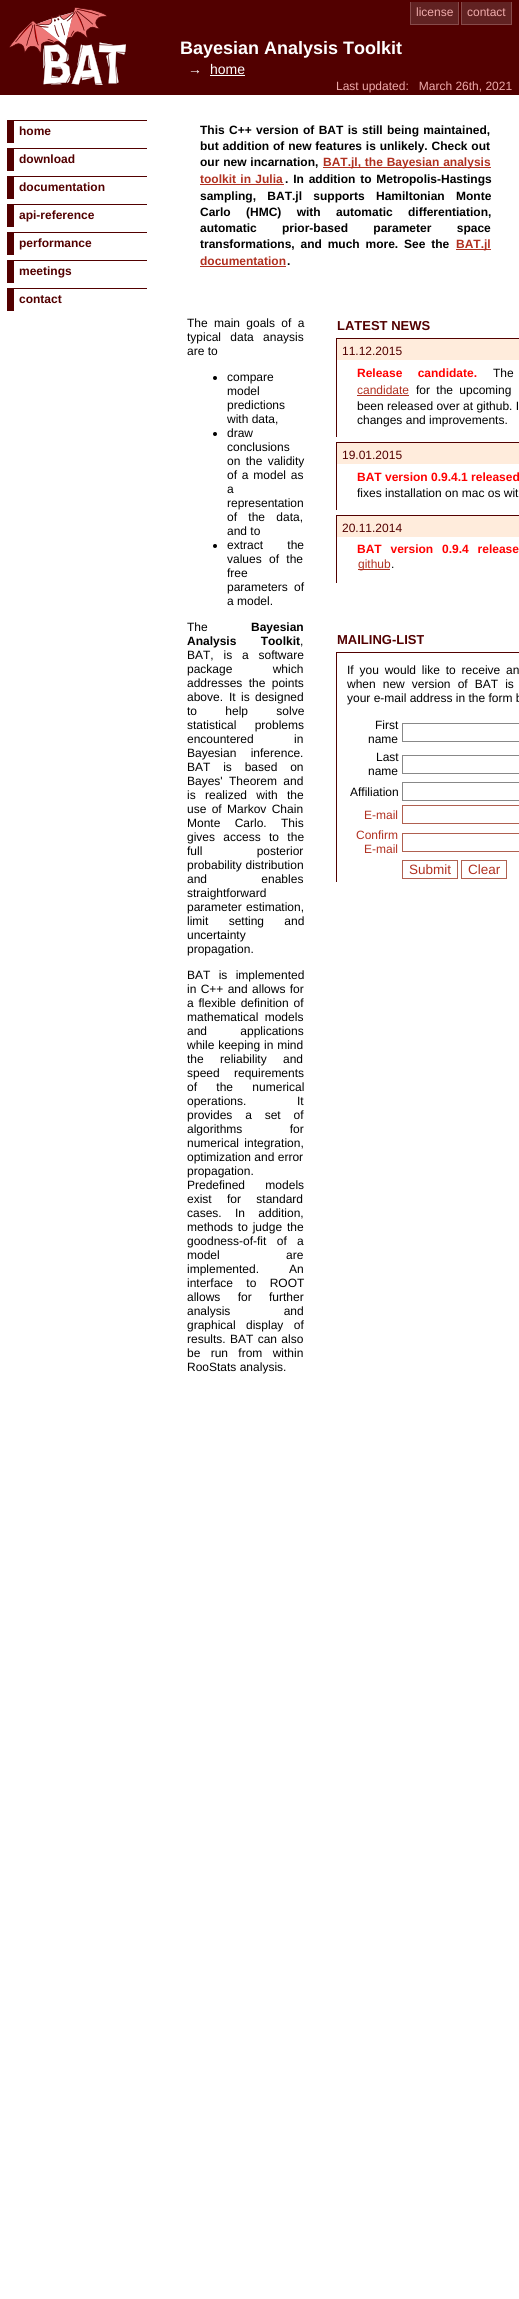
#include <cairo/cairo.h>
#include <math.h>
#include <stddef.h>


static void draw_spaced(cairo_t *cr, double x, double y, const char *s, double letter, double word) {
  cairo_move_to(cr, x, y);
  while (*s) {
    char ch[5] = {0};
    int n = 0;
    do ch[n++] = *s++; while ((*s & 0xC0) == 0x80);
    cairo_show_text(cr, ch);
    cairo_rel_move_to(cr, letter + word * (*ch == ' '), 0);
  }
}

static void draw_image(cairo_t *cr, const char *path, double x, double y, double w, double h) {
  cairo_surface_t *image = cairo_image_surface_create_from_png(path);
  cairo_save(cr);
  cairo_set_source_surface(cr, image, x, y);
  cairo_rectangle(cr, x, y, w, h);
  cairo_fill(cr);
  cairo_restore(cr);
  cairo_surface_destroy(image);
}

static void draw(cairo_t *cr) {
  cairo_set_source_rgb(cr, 1, 1, 1);
  cairo_paint(cr);
  cairo_set_source_rgb(cr, 82 / 255.0, 0, 0);
  cairo_rectangle(cr, 0, 0, 519, 95);
  cairo_fill(cr);
  draw_image(cr, "images/1.png", 9, 7, 117, 78);
  cairo_set_source_rgb(cr, 135 / 255.0, 75 / 255.0, 75 / 255.0);
  cairo_rectangle(cr, 410, 2, 49, 23);
  cairo_fill(cr);
  cairo_set_source_rgb(cr, 97 / 255.0, 34 / 255.0, 34 / 255.0);
  cairo_rectangle(cr, 411, 2, 47, 22);
  cairo_fill(cr);
  cairo_set_source_rgb(cr, 135 / 255.0, 75 / 255.0, 75 / 255.0);
  cairo_rectangle(cr, 461, 2, 51, 23);
  cairo_fill(cr);
  cairo_set_source_rgb(cr, 97 / 255.0, 34 / 255.0, 34 / 255.0);
  cairo_rectangle(cr, 462, 2, 49, 22);
  cairo_fill(cr);
  cairo_set_source_rgb(cr, 1, 1, 1);
  cairo_rectangle(cr, 210, 75, 35, 1);
  cairo_fill(cr);
  cairo_set_source_rgb(cr, 82 / 255.0, 0, 0);
  cairo_rectangle(cr, 7, 120, 140, 23);
  cairo_fill(cr);
  cairo_set_source_rgb(cr, 1, 1, 1);
  cairo_rectangle(cr, 14, 121, 133, 22);
  cairo_fill(cr);
  cairo_set_source_rgb(cr, 82 / 255.0, 0, 0);
  cairo_rectangle(cr, 7, 148, 140, 23);
  cairo_fill(cr);
  cairo_set_source_rgb(cr, 1, 1, 1);
  cairo_rectangle(cr, 14, 149, 133, 22);
  cairo_fill(cr);
  cairo_set_source_rgb(cr, 82 / 255.0, 0, 0);
  cairo_rectangle(cr, 7, 176, 140, 23);
  cairo_fill(cr);
  cairo_set_source_rgb(cr, 1, 1, 1);
  cairo_rectangle(cr, 14, 177, 133, 22);
  cairo_fill(cr);
  cairo_set_source_rgb(cr, 82 / 255.0, 0, 0);
  cairo_rectangle(cr, 7, 204, 140, 23);
  cairo_fill(cr);
  cairo_set_source_rgb(cr, 1, 1, 1);
  cairo_rectangle(cr, 14, 205, 133, 22);
  cairo_fill(cr);
  cairo_set_source_rgb(cr, 82 / 255.0, 0, 0);
  cairo_rectangle(cr, 7, 232, 140, 23);
  cairo_fill(cr);
  cairo_set_source_rgb(cr, 1, 1, 1);
  cairo_rectangle(cr, 14, 233, 133, 22);
  cairo_fill(cr);
  cairo_set_source_rgb(cr, 82 / 255.0, 0, 0);
  cairo_rectangle(cr, 7, 260, 140, 23);
  cairo_fill(cr);
  cairo_set_source_rgb(cr, 1, 1, 1);
  cairo_rectangle(cr, 14, 261, 133, 22);
  cairo_fill(cr);
  cairo_set_source_rgb(cr, 82 / 255.0, 0, 0);
  cairo_rectangle(cr, 7, 288, 140, 23);
  cairo_fill(cr);
  cairo_set_source_rgb(cr, 1, 1, 1);
  cairo_rectangle(cr, 14, 289, 133, 22);
  cairo_fill(cr);
  cairo_set_source_rgb(cr, 176 / 255.0, 48 / 255.0, 32 / 255.0);
  cairo_rectangle(cr, 323, 167, 168, 1);
  cairo_fill(cr);
  cairo_rectangle(cr, 200, 184, 84, 1);
  cairo_fill(cr);
  cairo_rectangle(cr, 456, 249, 35, 1);
  cairo_fill(cr);
  cairo_rectangle(cr, 200, 266, 86, 1);
  cairo_fill(cr);
  cairo_set_source_rgb(cr, 0, 0, 0);
  cairo_arc(cr, 215, 378, 2, 0, 2 * M_PI);
  cairo_fill(cr);
  cairo_arc(cr, 215, 434, 2, 0, 2 * M_PI);
  cairo_fill(cr);
  cairo_arc(cr, 215, 546, 2, 0, 2 * M_PI);
  cairo_fill(cr);
  cairo_set_source_rgb(cr, 1, 236 / 255.0, 220 / 255.0);
  cairo_rectangle(cr, 337, 339, 182, 21);
  cairo_fill(cr);
  cairo_set_source_rgb(cr, 82 / 255.0, 0, 0);
  cairo_rectangle(cr, 336, 338, 183, 1);
  cairo_fill(cr);
  cairo_rectangle(cr, 336, 338, 1, 99);
  cairo_fill(cr);
  cairo_set_source_rgb(cr, 176 / 255.0, 48 / 255.0, 32 / 255.0);
  cairo_rectangle(cr, 357, 395, 52, 1);
  cairo_fill(cr);
  cairo_set_source_rgb(cr, 1, 236 / 255.0, 220 / 255.0);
  cairo_rectangle(cr, 337, 443, 182, 21);
  cairo_fill(cr);
  cairo_set_source_rgb(cr, 82 / 255.0, 0, 0);
  cairo_rectangle(cr, 336, 442, 183, 1);
  cairo_fill(cr);
  cairo_rectangle(cr, 336, 442, 1, 68);
  cairo_fill(cr);
  cairo_set_source_rgb(cr, 1, 236 / 255.0, 220 / 255.0);
  cairo_rectangle(cr, 337, 516, 182, 21);
  cairo_fill(cr);
  cairo_set_source_rgb(cr, 82 / 255.0, 0, 0);
  cairo_rectangle(cr, 336, 515, 183, 1);
  cairo_fill(cr);
  cairo_rectangle(cr, 336, 515, 1, 68);
  cairo_fill(cr);
  cairo_set_source_rgb(cr, 176 / 255.0, 48 / 255.0, 32 / 255.0);
  cairo_rectangle(cr, 358, 569, 32, 1);
  cairo_fill(cr);
  cairo_set_source_rgb(cr, 82 / 255.0, 0, 0);
  cairo_rectangle(cr, 336, 652, 183, 1);
  cairo_fill(cr);
  cairo_rectangle(cr, 336, 652, 1, 230);
  cairo_fill(cr);
  cairo_rectangle(cr, 402.5, 723.5, 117, 18);
  cairo_set_source_rgb(cr, 136 / 255.0, 136 / 255.0, 136 / 255.0);
  cairo_set_line_width(cr, 1);
  cairo_stroke(cr);
  cairo_rectangle(cr, 402.5, 755.5, 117, 18);
  cairo_stroke(cr);
  cairo_rectangle(cr, 402.5, 782.5, 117, 18);
  cairo_stroke(cr);
  cairo_rectangle(cr, 402.5, 805.5, 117, 18);
  cairo_set_source_rgb(cr, 176 / 255.0, 96 / 255.0, 80 / 255.0);
  cairo_stroke(cr);
  cairo_rectangle(cr, 402.5, 833.5, 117, 18);
  cairo_stroke(cr);
  cairo_rectangle(cr, 402.5, 860.5, 55, 18);
  cairo_stroke(cr);
  cairo_rectangle(cr, 461.5, 860.5, 45, 18);
  cairo_stroke(cr);
  cairo_select_font_face(cr, "Liberation Sans", CAIRO_FONT_SLANT_NORMAL, CAIRO_FONT_WEIGHT_NORMAL);
  cairo_set_font_size(cr, 12);
  cairo_set_source_rgb(cr, 238 / 255.0, 170 / 255.0, 170 / 255.0);
  cairo_move_to(cr, 416, 16);
  cairo_show_text(cr, "license");
  cairo_move_to(cr, 467, 16);
  cairo_show_text(cr, "contact");
  cairo_select_font_face(cr, "Liberation Sans", CAIRO_FONT_SLANT_NORMAL, CAIRO_FONT_WEIGHT_BOLD);
  cairo_set_font_size(cr, 18);
  cairo_set_source_rgb(cr, 1, 1, 1);
  cairo_move_to(cr, 180, 54);
  cairo_show_text(cr, "Bayesian Analysis Toolkit");
  cairo_select_font_face(cr, "Liberation Sans", CAIRO_FONT_SLANT_NORMAL, CAIRO_FONT_WEIGHT_NORMAL);
  cairo_set_font_size(cr, 14);
  cairo_move_to(cr, 188, 74);
  cairo_show_text(cr, "→");
  cairo_move_to(cr, 210, 74);
  cairo_show_text(cr, "home");
  cairo_set_font_size(cr, 12);
  cairo_set_source_rgb(cr, 238 / 255.0, 170 / 255.0, 170 / 255.0);
  cairo_move_to(cr, 336, 90);
  cairo_show_text(cr, "Last updated:   March 26th, 2021");
  cairo_select_font_face(cr, "Liberation Sans", CAIRO_FONT_SLANT_NORMAL, CAIRO_FONT_WEIGHT_BOLD);
  cairo_set_source_rgb(cr, 82 / 255.0, 0, 0);
  cairo_move_to(cr, 19, 135);
  cairo_show_text(cr, "home");
  cairo_move_to(cr, 19, 163);
  cairo_show_text(cr, "download");
  cairo_move_to(cr, 19, 191);
  cairo_show_text(cr, "documentation");
  cairo_move_to(cr, 19, 219);
  cairo_show_text(cr, "api-reference");
  cairo_move_to(cr, 19, 247);
  cairo_show_text(cr, "performance");
  cairo_move_to(cr, 19, 275);
  cairo_show_text(cr, "meetings");
  cairo_move_to(cr, 19, 303);
  cairo_show_text(cr, "contact");
  cairo_set_source_rgb(cr, 0, 0, 0);
  draw_spaced(cr, 200, 134, "This C++ version of BAT is still being maintained,", 0, 1);
  draw_spaced(cr, 200, 150, "but addition of new features is unlikely. Check out", 0, 0.5);
  draw_spaced(cr, 200, 166, "our new incarnation,", 0, 0.5);
  cairo_set_source_rgb(cr, 176 / 255.0, 48 / 255.0, 32 / 255.0);
  draw_spaced(cr, 323, 166, "BAT.jl, the Bayesian analysis", 0, 0.5);
  draw_spaced(cr, 200, 183, "toolkit in Julia", 0, 1);
  cairo_set_source_rgb(cr, 0, 0, 0);
  draw_spaced(cr, 285, 183, ". In addition to Metropolis-Hastings", 0, 1.5);
  draw_spaced(cr, 200, 200, "sampling, BAT.jl supports Hamiltonian Monte", 0, 8);
  draw_spaced(cr, 200, 216, "Carlo (HMC) with automatic differentiation,", 0, 12);
  draw_spaced(cr, 200, 232, "automatic prior-based parameter space", 0, 22);
  draw_spaced(cr, 200, 248, "transformations, and much more. See the", 0, 2.5);
  cairo_set_source_rgb(cr, 176 / 255.0, 48 / 255.0, 32 / 255.0);
  cairo_move_to(cr, 456, 248);
  cairo_show_text(cr, "BAT.jl");
  cairo_move_to(cr, 200, 265);
  cairo_show_text(cr, "documentation");
  cairo_set_source_rgb(cr, 0, 0, 0);
  cairo_move_to(cr, 287, 265);
  cairo_show_text(cr, ".");
  cairo_select_font_face(cr, "Liberation Sans", CAIRO_FONT_SLANT_NORMAL, CAIRO_FONT_WEIGHT_NORMAL);
  draw_spaced(cr, 187, 327, "The main goals of a", 0, 3);
  draw_spaced(cr, 187, 341, "typical data anaysis", 0, 6);
  cairo_move_to(cr, 187, 355);
  cairo_show_text(cr, "are to");
  cairo_move_to(cr, 227, 381);
  cairo_show_text(cr, "compare");
  cairo_move_to(cr, 227, 395);
  cairo_show_text(cr, "model");
  cairo_move_to(cr, 227, 409);
  cairo_show_text(cr, "predictions");
  cairo_move_to(cr, 227, 423);
  cairo_show_text(cr, "with data,");
  cairo_move_to(cr, 227, 437);
  cairo_show_text(cr, "draw");
  cairo_move_to(cr, 227, 451);
  cairo_show_text(cr, "conclusions");
  draw_spaced(cr, 227, 465, "on the validity", 0, 2);
  draw_spaced(cr, 227, 479, "of a model as", 0, 1.5);
  cairo_move_to(cr, 227, 493);
  cairo_show_text(cr, "a");
  cairo_move_to(cr, 227, 507);
  cairo_show_text(cr, "representation");
  draw_spaced(cr, 227, 521, "of the data,", 0, 8);
  cairo_move_to(cr, 227, 535);
  cairo_show_text(cr, "and to");
  draw_spaced(cr, 227, 549, "extract the", 0, 21);
  draw_spaced(cr, 227, 563, "values of the", 0, 4);
  cairo_move_to(cr, 227, 577);
  cairo_show_text(cr, "free");
  draw_spaced(cr, 227, 591, "parameters of", 0, 3);
  cairo_move_to(cr, 227, 605);
  cairo_show_text(cr, "a model.");
  cairo_move_to(cr, 187, 631);
  cairo_show_text(cr, "The");
  cairo_select_font_face(cr, "Liberation Sans", CAIRO_FONT_SLANT_NORMAL, CAIRO_FONT_WEIGHT_BOLD);
  cairo_move_to(cr, 251, 631);
  cairo_show_text(cr, "Bayesian");
  draw_spaced(cr, 187, 645, "Analysis Toolkit", 0, 21);
  cairo_select_font_face(cr, "Liberation Sans", CAIRO_FONT_SLANT_NORMAL, CAIRO_FONT_WEIGHT_NORMAL);
  cairo_move_to(cr, 300, 645);
  cairo_show_text(cr, ",");
  draw_spaced(cr, 187, 659, "BAT, is a software", 0, 6.5);
  draw_spaced(cr, 187, 673, "package which", 0, 37);
  draw_spaced(cr, 187, 687, "addresses the points", 0, 3);
  cairo_move_to(cr, 187, 701);
  cairo_show_text(cr, "above.");
  draw_spaced(cr, 229, 701, "It is designed", 0, 2);
  draw_spaced(cr, 187, 715, "to help solve", 0, 25);
  draw_spaced(cr, 187, 729, "statistical problems", 0, 15);
  draw_spaced(cr, 187, 743, "encountered in", 0, 37);
  draw_spaced(cr, 187, 757, "Bayesian inference.", 0, 11);
  draw_spaced(cr, 187, 771, "BAT is based on", 0, 9.5);
  draw_spaced(cr, 187, 785, "Bayes' Theorem and", 0, 3);
  draw_spaced(cr, 187, 799, "is realized with the", 0, 6);
  draw_spaced(cr, 187, 813, "use of Markov Chain", 0, 2);
  draw_spaced(cr, 187, 827, "Monte Carlo. This", 0, 11);
  draw_spaced(cr, 187, 841, "gives access to the", 0, 5);
  draw_spaced(cr, 187, 855, "full posterior", 0, 51);
  draw_spaced(cr, 187, 869, "probability distribution", 0, 0.5);
  draw_spaced(cr, 187, 883, "and enables", 0, 51);
  cairo_move_to(cr, 187, 897);
  cairo_show_text(cr, "straightforward");
  draw_spaced(cr, 187, 911, "parameter estimation,", 0, 1);
  draw_spaced(cr, 187, 925, "limit setting and", 0, 17);
  cairo_move_to(cr, 187, 939);
  cairo_show_text(cr, "uncertainty");
  cairo_move_to(cr, 187, 953);
  cairo_show_text(cr, "propagation.");
  draw_spaced(cr, 187, 979, "BAT is implemented", 0, 5);
  draw_spaced(cr, 187, 993, "in C++ and allows for", 0, 1);
  draw_spaced(cr, 187, 1007, "a flexible definition of", 0, 1.5);
  draw_spaced(cr, 187, 1021, "mathematical models", 0, 3);
  draw_spaced(cr, 187, 1035, "and applications", 0, 30);
  draw_spaced(cr, 187, 1049, "while keeping in mind", 0, 0.5);
  draw_spaced(cr, 187, 1063, "the reliability and", 0, 13);
  draw_spaced(cr, 187, 1077, "speed requirements", 0, 11);
  draw_spaced(cr, 187, 1091, "of the numerical", 0, 16);
  cairo_move_to(cr, 187, 1105);
  cairo_show_text(cr, "operations.");
  cairo_move_to(cr, 297, 1105);
  cairo_show_text(cr, "It");
  draw_spaced(cr, 187, 1119, "provides a set of", 0, 9.5);
  draw_spaced(cr, 187, 1133, "algorithms for", 0, 44);
  draw_spaced(cr, 187, 1147, "numerical integration,", 0, 2);
  cairo_move_to(cr, 187, 1161);
  cairo_show_text(cr, "optimization and error");
  cairo_move_to(cr, 187, 1175);
  cairo_show_text(cr, "propagation.");
  draw_spaced(cr, 187, 1189, "Predefined models", 0, 17);
  draw_spaced(cr, 187, 1203, "exist for standard", 0, 12);
  cairo_move_to(cr, 187, 1217);
  cairo_show_text(cr, "cases.");
  draw_spaced(cr, 235, 1217, "In addition,", 0, 10);
  draw_spaced(cr, 187, 1231, "methods to judge the", 0, 1.5);
  draw_spaced(cr, 187, 1245, "goodness-of-fit of a", 0, 7);
  draw_spaced(cr, 187, 1259, "model are", 0, 63);
  cairo_move_to(cr, 187, 1273);
  cairo_show_text(cr, "implemented.");
  cairo_move_to(cr, 289, 1273);
  cairo_show_text(cr, "An");
  draw_spaced(cr, 187, 1287, "interface to ROOT", 0, 10);
  draw_spaced(cr, 187, 1301, "allows for further", 0, 14);
  draw_spaced(cr, 187, 1315, "analysis and", 0, 50);
  draw_spaced(cr, 187, 1329, "graphical display of", 0, 7);
  draw_spaced(cr, 187, 1343, "results. BAT can also", 0, 1);
  draw_spaced(cr, 187, 1357, "be run from within", 0, 7);
  cairo_move_to(cr, 187, 1371);
  cairo_show_text(cr, "RooStats analysis.");
  cairo_select_font_face(cr, "Liberation Sans", CAIRO_FONT_SLANT_NORMAL, CAIRO_FONT_WEIGHT_BOLD);
  cairo_set_font_size(cr, 13);
  cairo_set_source_rgb(cr, 82 / 255.0, 0, 0);
  cairo_move_to(cr, 337, 330);
  cairo_show_text(cr, "LATEST NEWS");
  cairo_select_font_face(cr, "Liberation Sans", CAIRO_FONT_SLANT_NORMAL, CAIRO_FONT_WEIGHT_NORMAL);
  cairo_set_font_size(cr, 12);
  cairo_move_to(cr, 342, 355);
  cairo_show_text(cr, "11.12.2015");
  cairo_select_font_face(cr, "Liberation Sans", CAIRO_FONT_SLANT_NORMAL, CAIRO_FONT_WEIGHT_BOLD);
  cairo_set_source_rgb(cr, 1, 0, 0);
  draw_spaced(cr, 357, 377, "Release candidate.", 0, 12);
  cairo_select_font_face(cr, "Liberation Sans", CAIRO_FONT_SLANT_NORMAL, CAIRO_FONT_WEIGHT_NORMAL);
  cairo_set_source_rgb(cr, 0, 0, 0);
  draw_spaced(cr, 493, 377, "The", 0, 12);
  cairo_set_source_rgb(cr, 176 / 255.0, 48 / 255.0, 32 / 255.0);
  cairo_move_to(cr, 357, 394);
  cairo_show_text(cr, "candidate");
  cairo_set_source_rgb(cr, 0, 0, 0);
  draw_spaced(cr, 416, 394, "for the upcoming", 0, 3);
  cairo_move_to(cr, 357, 410);
  cairo_show_text(cr, "been released over at github. I");
  cairo_move_to(cr, 357, 424);
  cairo_show_text(cr, "changes and improvements.");
  cairo_set_source_rgb(cr, 82 / 255.0, 0, 0);
  cairo_move_to(cr, 342, 459);
  cairo_show_text(cr, "19.01.2015");
  cairo_select_font_face(cr, "Liberation Sans", CAIRO_FONT_SLANT_NORMAL, CAIRO_FONT_WEIGHT_BOLD);
  cairo_set_source_rgb(cr, 1, 0, 0);
  cairo_move_to(cr, 357, 481);
  cairo_show_text(cr, "BAT version 0.9.4.1 released");
  cairo_select_font_face(cr, "Liberation Sans", CAIRO_FONT_SLANT_NORMAL, CAIRO_FONT_WEIGHT_NORMAL);
  cairo_set_source_rgb(cr, 0, 0, 0);
  cairo_move_to(cr, 357, 497);
  cairo_show_text(cr, "fixes installation on mac os wit");
  cairo_set_source_rgb(cr, 82 / 255.0, 0, 0);
  cairo_move_to(cr, 342, 532);
  cairo_show_text(cr, "20.11.2014");
  cairo_select_font_face(cr, "Liberation Sans", CAIRO_FONT_SLANT_NORMAL, CAIRO_FONT_WEIGHT_BOLD);
  cairo_set_source_rgb(cr, 1, 0, 0);
  draw_spaced(cr, 357, 553, "BAT version 0.9.4 release", 0, 5.5);
  cairo_select_font_face(cr, "Liberation Sans", CAIRO_FONT_SLANT_NORMAL, CAIRO_FONT_WEIGHT_NORMAL);
  cairo_set_source_rgb(cr, 176 / 255.0, 48 / 255.0, 32 / 255.0);
  cairo_move_to(cr, 358, 568);
  cairo_show_text(cr, "github");
  cairo_set_source_rgb(cr, 0, 0, 0);
  cairo_move_to(cr, 391, 568);
  cairo_show_text(cr, ".");
  cairo_select_font_face(cr, "Liberation Sans", CAIRO_FONT_SLANT_NORMAL, CAIRO_FONT_WEIGHT_BOLD);
  cairo_set_font_size(cr, 13);
  cairo_set_source_rgb(cr, 82 / 255.0, 0, 0);
  cairo_move_to(cr, 337, 644);
  cairo_show_text(cr, "MAILING-LIST");
  cairo_select_font_face(cr, "Liberation Sans", CAIRO_FONT_SLANT_NORMAL, CAIRO_FONT_WEIGHT_NORMAL);
  cairo_set_font_size(cr, 12);
  cairo_set_source_rgb(cr, 0, 0, 0);
  draw_spaced(cr, 347, 674, "If you would like to receive an", 0, 2.5);
  draw_spaced(cr, 347, 688, "when new version of BAT is", 0, 3.75);
  cairo_move_to(cr, 347, 702);
  cairo_show_text(cr, "your e-mail address in the form b");
  cairo_move_to(cr, 375, 729);
  cairo_show_text(cr, "First");
  cairo_move_to(cr, 368, 743);
  cairo_show_text(cr, "name");
  cairo_move_to(cr, 376, 761);
  cairo_show_text(cr, "Last");
  cairo_move_to(cr, 368, 775);
  cairo_show_text(cr, "name");
  cairo_move_to(cr, 350, 796);
  cairo_show_text(cr, "Affiliation");
  cairo_set_source_rgb(cr, 176 / 255.0, 48 / 255.0, 32 / 255.0);
  cairo_move_to(cr, 364, 819);
  cairo_show_text(cr, "E-mail");
  cairo_move_to(cr, 356, 839);
  cairo_show_text(cr, "Confirm");
  cairo_move_to(cr, 364, 853);
  cairo_show_text(cr, "E-mail");
  cairo_set_font_size(cr, 13.5);
  cairo_move_to(cr, 409, 874);
  cairo_show_text(cr, "Submit");
  cairo_move_to(cr, 468, 874);
  cairo_show_text(cr, "Clear");
}

int main(void) {
  cairo_surface_t *surface = cairo_image_surface_create(CAIRO_FORMAT_RGB24, 519, 2299);
  cairo_t *cr = cairo_create(surface);
  cairo_font_options_t *options = cairo_font_options_create();
  cairo_font_options_set_hint_metrics(options, CAIRO_HINT_METRICS_OFF);
  cairo_font_options_set_hint_style(options, CAIRO_HINT_STYLE_NONE);
  cairo_set_font_options(cr, options);
  cairo_set_miter_limit(cr, 4);
  draw(cr);
  cairo_surface_write_to_png(surface, "out.png");
  cairo_font_options_destroy(options);
  cairo_destroy(cr);
  cairo_surface_destroy(surface);
  return 0;
}
